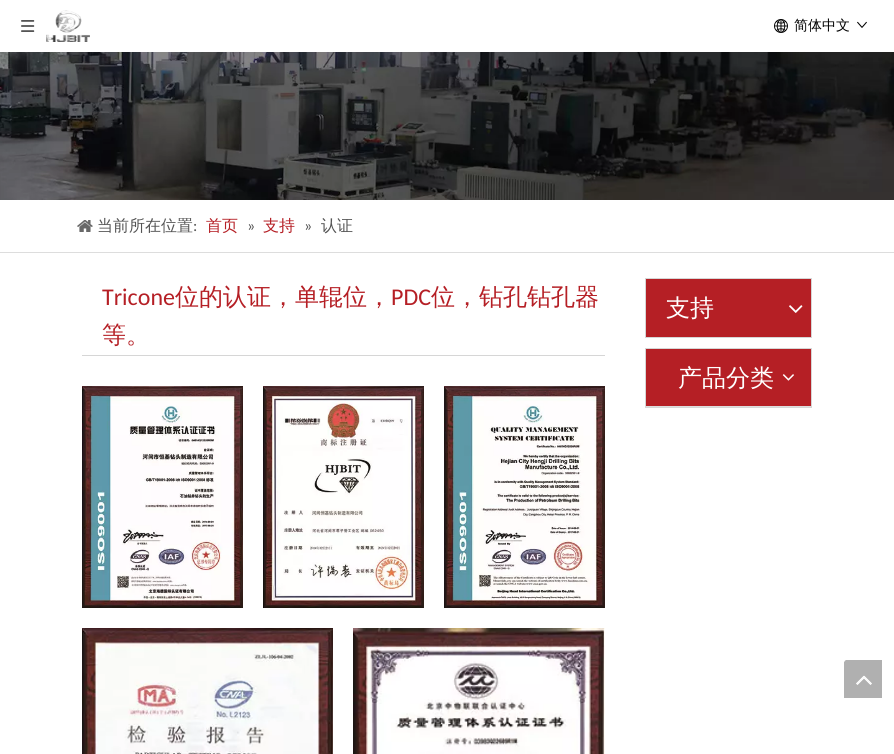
#include <cairo/cairo.h>
#include <math.h>
#include <stddef.h>


static void draw_image(cairo_t *cr, const char *path, double x, double y, double w, double h) {
  cairo_surface_t *image = cairo_image_surface_create_from_png(path);
  cairo_save(cr);
  cairo_set_source_surface(cr, image, x, y);
  cairo_rectangle(cr, x, y, w, h);
  cairo_fill(cr);
  cairo_restore(cr);
  cairo_surface_destroy(image);
}

static void draw(cairo_t *cr) {
  cairo_set_source_rgb(cr, 1, 1, 1);
  cairo_paint(cr);
  draw_image(cr, "images/1.png", 21, 20, 14, 12);
  draw_image(cr, "images/2.png", 46, 10, 44, 32);
  draw_image(cr, "images/3.png", 774, 19, 14, 14);
  draw_image(cr, "images/4.png", 857, 21, 10, 7);
  draw_image(cr, "images/5.png", 0, 52, 894, 148);
  cairo_set_source_rgb(cr, 221 / 255.0, 221 / 255.0, 221 / 255.0);
  cairo_rectangle(cr, 0, 252, 894, 1);
  cairo_fill(cr);
  draw_image(cr, "images/6.png", 77, 220, 16, 12);
  cairo_set_source_rgb(cr, 214 / 255.0, 214 / 255.0, 214 / 255.0);
  cairo_rectangle(cr, 82, 355, 523, 1);
  cairo_fill(cr);
  draw_image(cr, "images/7.png", 82, 386, 161, 222);
  draw_image(cr, "images/8.png", 263, 386, 161, 222);
  draw_image(cr, "images/9.png", 444, 386, 161, 222);
  draw_image(cr, "images/10.png", 82, 628, 251, 126);
  draw_image(cr, "images/11.png", 353, 628, 252, 126);
  cairo_rectangle(cr, 645.5, 278.5, 166, 59);
  cairo_set_line_width(cr, 1);
  cairo_stroke(cr);
  cairo_set_source_rgb(cr, 181 / 255.0, 31 / 255.0, 37 / 255.0);
  cairo_rectangle(cr, 646, 279, 165, 58);
  cairo_fill(cr);
  draw_image(cr, "images/12.png", 789, 305, 14, 8);
  cairo_rectangle(cr, 645.5, 348.5, 166, 59);
  cairo_set_source_rgb(cr, 214 / 255.0, 214 / 255.0, 214 / 255.0);
  cairo_stroke(cr);
  cairo_set_source_rgb(cr, 181 / 255.0, 31 / 255.0, 37 / 255.0);
  cairo_rectangle(cr, 646, 349, 165, 57);
  cairo_fill(cr);
  cairo_set_source_rgb(cr, 221 / 255.0, 221 / 255.0, 221 / 255.0);
  cairo_rectangle(cr, 646, 406, 165, 1);
  cairo_fill(cr);
  draw_image(cr, "images/13.png", 782, 374, 12, 7);
  draw_image(cr, "images/14.png", 844, 660, 38, 38);
  cairo_select_font_face(cr, "WenQuanYi Zen Hei Medium", CAIRO_FONT_SLANT_NORMAL, CAIRO_FONT_WEIGHT_NORMAL);
  cairo_set_font_size(cr, 14);
  cairo_set_source_rgb(cr, 0, 0, 0);
  cairo_move_to(cr, 794, 30);
  cairo_show_text(cr, "简体中文");
  cairo_set_font_size(cr, 16);
  cairo_set_source_rgb(cr, 84 / 255.0, 84 / 255.0, 84 / 255.0);
  cairo_move_to(cr, 97, 231);
  cairo_show_text(cr, "当前所在位置");
  cairo_select_font_face(cr, "Carlito", CAIRO_FONT_SLANT_NORMAL, CAIRO_FONT_WEIGHT_NORMAL);
  cairo_move_to(cr, 193, 231);
  cairo_show_text(cr, ":");
  cairo_select_font_face(cr, "WenQuanYi Zen Hei Medium", CAIRO_FONT_SLANT_NORMAL, CAIRO_FONT_WEIGHT_NORMAL);
  cairo_set_source_rgb(cr, 181 / 255.0, 31 / 255.0, 37 / 255.0);
  cairo_move_to(cr, 206, 231);
  cairo_show_text(cr, "首页");
  cairo_select_font_face(cr, "Carlito", CAIRO_FONT_SLANT_NORMAL, CAIRO_FONT_WEIGHT_NORMAL);
  cairo_set_source_rgb(cr, 84 / 255.0, 84 / 255.0, 84 / 255.0);
  cairo_move_to(cr, 247, 231);
  cairo_show_text(cr, "»");
  cairo_select_font_face(cr, "WenQuanYi Zen Hei Medium", CAIRO_FONT_SLANT_NORMAL, CAIRO_FONT_WEIGHT_NORMAL);
  cairo_set_source_rgb(cr, 181 / 255.0, 31 / 255.0, 37 / 255.0);
  cairo_move_to(cr, 263, 231);
  cairo_show_text(cr, "支持");
  cairo_select_font_face(cr, "Carlito", CAIRO_FONT_SLANT_NORMAL, CAIRO_FONT_WEIGHT_NORMAL);
  cairo_set_source_rgb(cr, 84 / 255.0, 84 / 255.0, 84 / 255.0);
  cairo_move_to(cr, 304, 231);
  cairo_show_text(cr, "»");
  cairo_select_font_face(cr, "WenQuanYi Zen Hei Medium", CAIRO_FONT_SLANT_NORMAL, CAIRO_FONT_WEIGHT_NORMAL);
  cairo_move_to(cr, 321, 231);
  cairo_show_text(cr, "认证");
  cairo_select_font_face(cr, "Carlito", CAIRO_FONT_SLANT_NORMAL, CAIRO_FONT_WEIGHT_NORMAL);
  cairo_set_font_size(cr, 24);
  cairo_set_source_rgb(cr, 181 / 255.0, 31 / 255.0, 37 / 255.0);
  cairo_move_to(cr, 102, 305);
  cairo_show_text(cr, "Tricone");
  cairo_select_font_face(cr, "WenQuanYi Zen Hei Medium", CAIRO_FONT_SLANT_NORMAL, CAIRO_FONT_WEIGHT_NORMAL);
  cairo_move_to(cr, 175, 305);
  cairo_show_text(cr, "位的认证，单辊位，");
  cairo_select_font_face(cr, "Carlito", CAIRO_FONT_SLANT_NORMAL, CAIRO_FONT_WEIGHT_NORMAL);
  cairo_move_to(cr, 391, 305);
  cairo_show_text(cr, "PDC");
  cairo_select_font_face(cr, "WenQuanYi Zen Hei Medium", CAIRO_FONT_SLANT_NORMAL, CAIRO_FONT_WEIGHT_NORMAL);
  cairo_move_to(cr, 431, 305);
  cairo_show_text(cr, "位，钻孔钻孔器");
  cairo_move_to(cr, 102, 343);
  cairo_show_text(cr, "等。");
  cairo_set_source_rgb(cr, 1, 1, 1);
  cairo_move_to(cr, 666, 316);
  cairo_show_text(cr, "支持");
  cairo_move_to(cr, 678, 386);
  cairo_show_text(cr, "产品分类");
}

int main(void) {
  cairo_surface_t *surface = cairo_image_surface_create(CAIRO_FORMAT_RGB24, 894, 754);
  cairo_t *cr = cairo_create(surface);
  cairo_font_options_t *options = cairo_font_options_create();
  cairo_font_options_set_hint_metrics(options, CAIRO_HINT_METRICS_OFF);
  cairo_font_options_set_hint_style(options, CAIRO_HINT_STYLE_NONE);
  cairo_set_font_options(cr, options);
  cairo_set_miter_limit(cr, 4);
  draw(cr);
  cairo_surface_write_to_png(surface, "out.png");
  cairo_font_options_destroy(options);
  cairo_destroy(cr);
  cairo_surface_destroy(surface);
  return 0;
}
